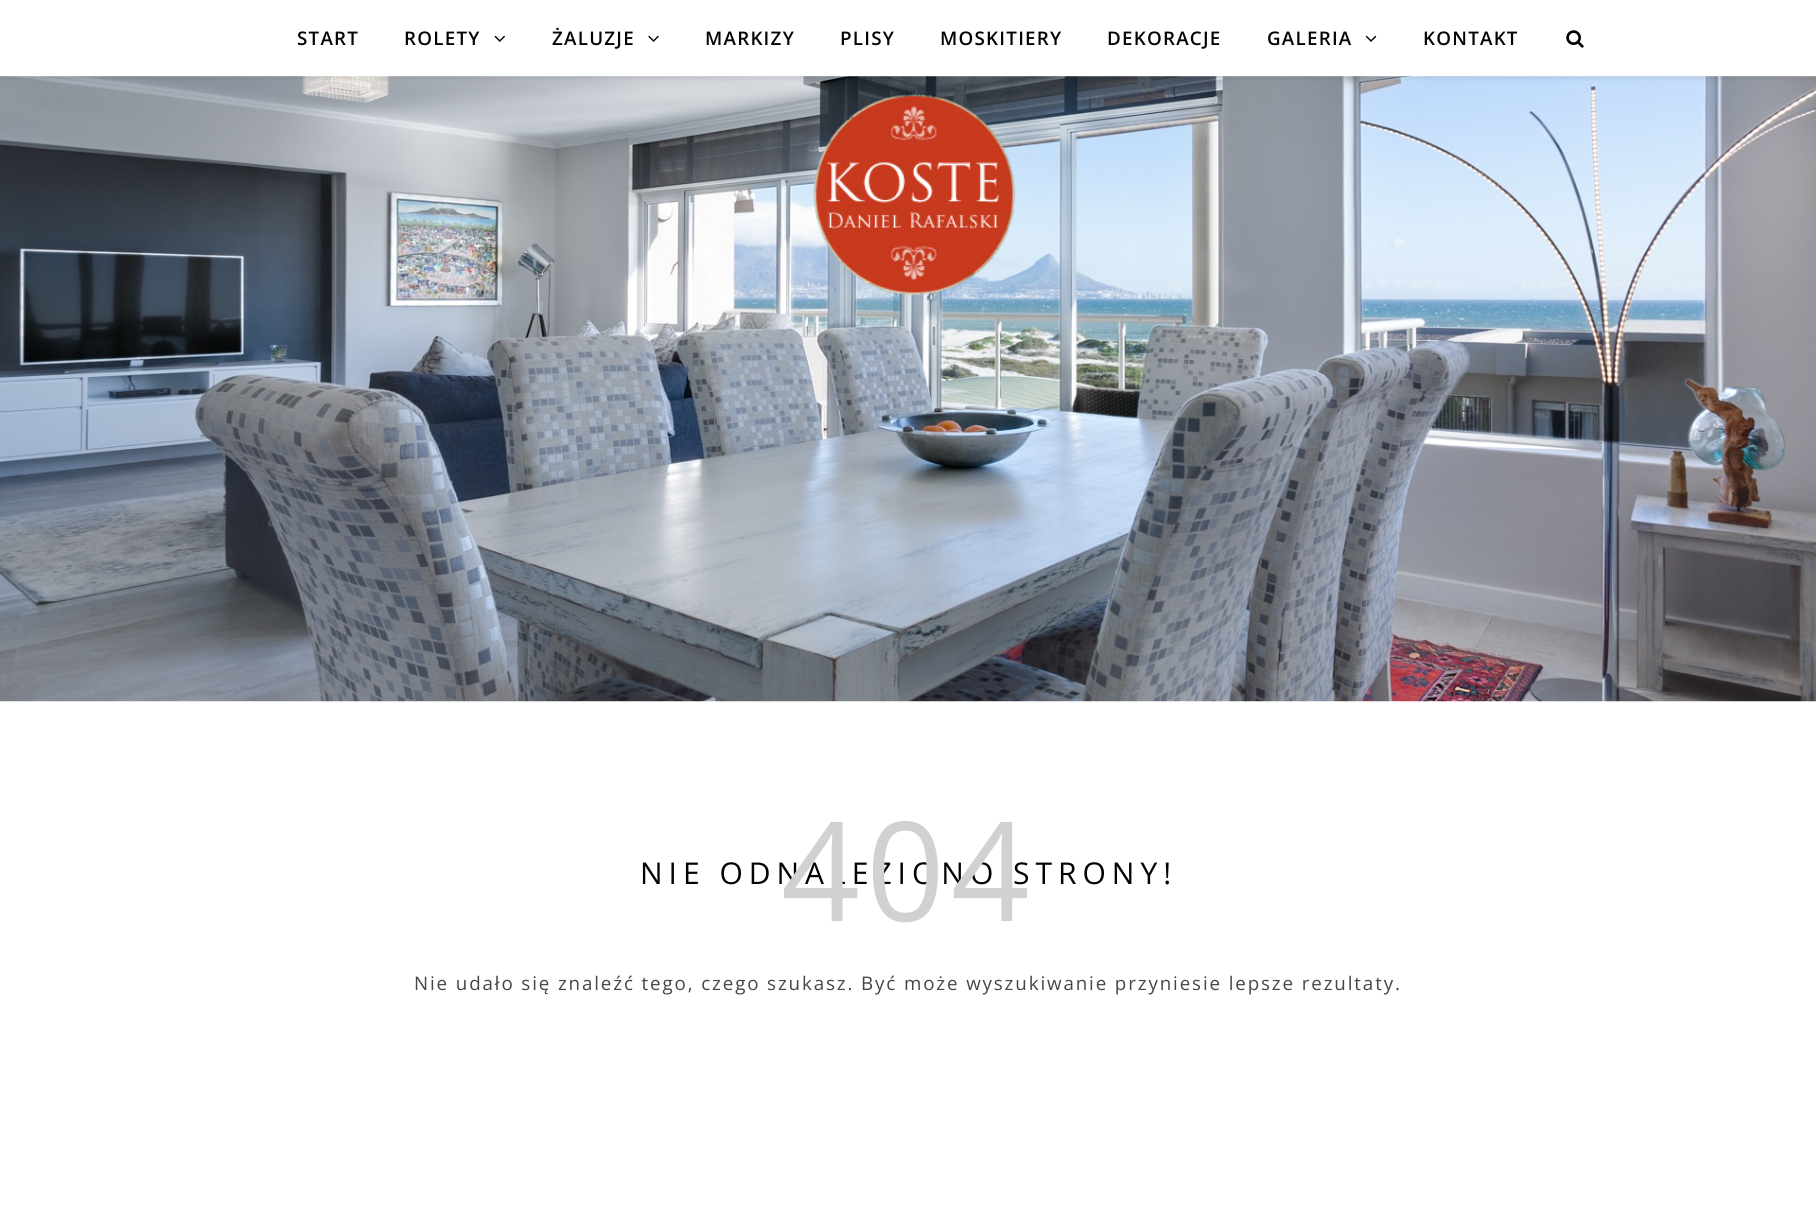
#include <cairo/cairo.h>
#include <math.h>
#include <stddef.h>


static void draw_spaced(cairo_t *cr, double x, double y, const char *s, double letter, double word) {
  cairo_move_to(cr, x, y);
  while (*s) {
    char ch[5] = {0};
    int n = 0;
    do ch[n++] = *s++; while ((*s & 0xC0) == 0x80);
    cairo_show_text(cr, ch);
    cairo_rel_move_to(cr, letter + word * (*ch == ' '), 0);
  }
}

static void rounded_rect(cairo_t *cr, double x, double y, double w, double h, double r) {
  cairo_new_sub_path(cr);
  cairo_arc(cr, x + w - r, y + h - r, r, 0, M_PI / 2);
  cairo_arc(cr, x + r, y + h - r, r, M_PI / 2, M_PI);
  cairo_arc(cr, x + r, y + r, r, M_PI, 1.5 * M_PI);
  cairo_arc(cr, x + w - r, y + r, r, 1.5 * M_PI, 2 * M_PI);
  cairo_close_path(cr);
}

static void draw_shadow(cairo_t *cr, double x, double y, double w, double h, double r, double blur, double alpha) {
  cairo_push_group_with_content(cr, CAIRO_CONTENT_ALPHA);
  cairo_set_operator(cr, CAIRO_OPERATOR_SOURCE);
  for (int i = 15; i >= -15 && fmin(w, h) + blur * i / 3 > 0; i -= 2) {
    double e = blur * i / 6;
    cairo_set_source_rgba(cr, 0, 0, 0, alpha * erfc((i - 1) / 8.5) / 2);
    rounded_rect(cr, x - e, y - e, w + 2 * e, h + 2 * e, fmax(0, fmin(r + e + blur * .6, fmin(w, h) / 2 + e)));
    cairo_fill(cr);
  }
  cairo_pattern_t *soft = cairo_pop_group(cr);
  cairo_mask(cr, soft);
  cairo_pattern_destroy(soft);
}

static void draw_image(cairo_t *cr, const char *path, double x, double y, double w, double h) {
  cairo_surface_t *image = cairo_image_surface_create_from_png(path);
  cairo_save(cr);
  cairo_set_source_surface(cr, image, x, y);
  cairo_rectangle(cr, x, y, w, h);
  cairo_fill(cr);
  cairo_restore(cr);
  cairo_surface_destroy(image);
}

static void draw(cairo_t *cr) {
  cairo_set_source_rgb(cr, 1, 1, 1);
  cairo_paint(cr);
  draw_image(cr, "images/5.png", 0, 76, 1816, 626);
  cairo_save(cr);
  cairo_rectangle(cr, 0, 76, 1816, 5);
  cairo_clip(cr);
  cairo_set_source_rgb(cr, 0, 0, 0);
  draw_shadow(cr, 0, 1, 1816, 77, 0, 3, 0.1);
  cairo_restore(cr);
  draw_image(cr, "images/1.png", 494, 35, 11, 7);
  draw_image(cr, "images/2.png", 648, 35, 11, 7);
  draw_image(cr, "images/3.png", 1365, 35, 12, 7);
  draw_image(cr, "images/4.png", 1566, 30, 18, 18);
  draw_image(cr, "images/6.png", 813, 93, 203, 203);
  cairo_select_font_face(cr, "Open Sans SemiBold", CAIRO_FONT_SLANT_NORMAL, CAIRO_FONT_WEIGHT_NORMAL);
  cairo_set_font_size(cr, 18.75);
  cairo_set_source_rgb(cr, 3 / 255.0, 3 / 255.0, 3 / 255.0);
  draw_spaced(cr, 297, 45, "START", 1.25, 0);
  draw_spaced(cr, 404, 45, "ROLETY", 1.25, 0);
  draw_spaced(cr, 552, 45, "ŻALUZJE", 1.25, 0);
  draw_spaced(cr, 705, 45, "MARKIZY", 1.25, 0);
  draw_spaced(cr, 840, 45, "PLISY", 1.25, 0);
  draw_spaced(cr, 940, 45, "MOSKITIERY", 1.25, 0);
  draw_spaced(cr, 1107, 45, "DEKORACJE", 1.25, 0);
  draw_spaced(cr, 1267, 45, "GALERIA", 1.25, 0);
  draw_spaced(cr, 1423, 45, "KONTAKT", 1.25, 0);
  cairo_select_font_face(cr, "Open Sans", CAIRO_FONT_SLANT_NORMAL, CAIRO_FONT_WEIGHT_NORMAL);
  cairo_set_font_size(cr, 30);
  draw_spaced(cr, 640, 884, "NIE ODNALEZIONO STRONY!", 6, 0);
  cairo_set_font_size(cr, 138);
  cairo_set_source_rgb(cr, 209 / 255.0, 209 / 255.0, 209 / 255.0);
  draw_spaced(cr, 781, 921, "404", 6, 0);
  cairo_set_font_size(cr, 18.75);
  cairo_set_source_rgb(cr, 70 / 255.0, 70 / 255.0, 70 / 255.0);
  draw_spaced(cr, 414, 990, "Nie udało się znaleźć tego, czego szukasz. Być może wyszukiwanie przyniesie lepsze rezultaty.", 1.88, 0);
}

int main(void) {
  cairo_surface_t *surface = cairo_image_surface_create(CAIRO_FORMAT_RGB24, 1816, 1211);
  cairo_t *cr = cairo_create(surface);
  cairo_font_options_t *options = cairo_font_options_create();
  cairo_font_options_set_hint_metrics(options, CAIRO_HINT_METRICS_OFF);
  cairo_font_options_set_hint_style(options, CAIRO_HINT_STYLE_NONE);
  cairo_set_font_options(cr, options);
  cairo_set_miter_limit(cr, 4);
  draw(cr);
  cairo_surface_write_to_png(surface, "out.png");
  cairo_font_options_destroy(options);
  cairo_destroy(cr);
  cairo_surface_destroy(surface);
  return 0;
}
